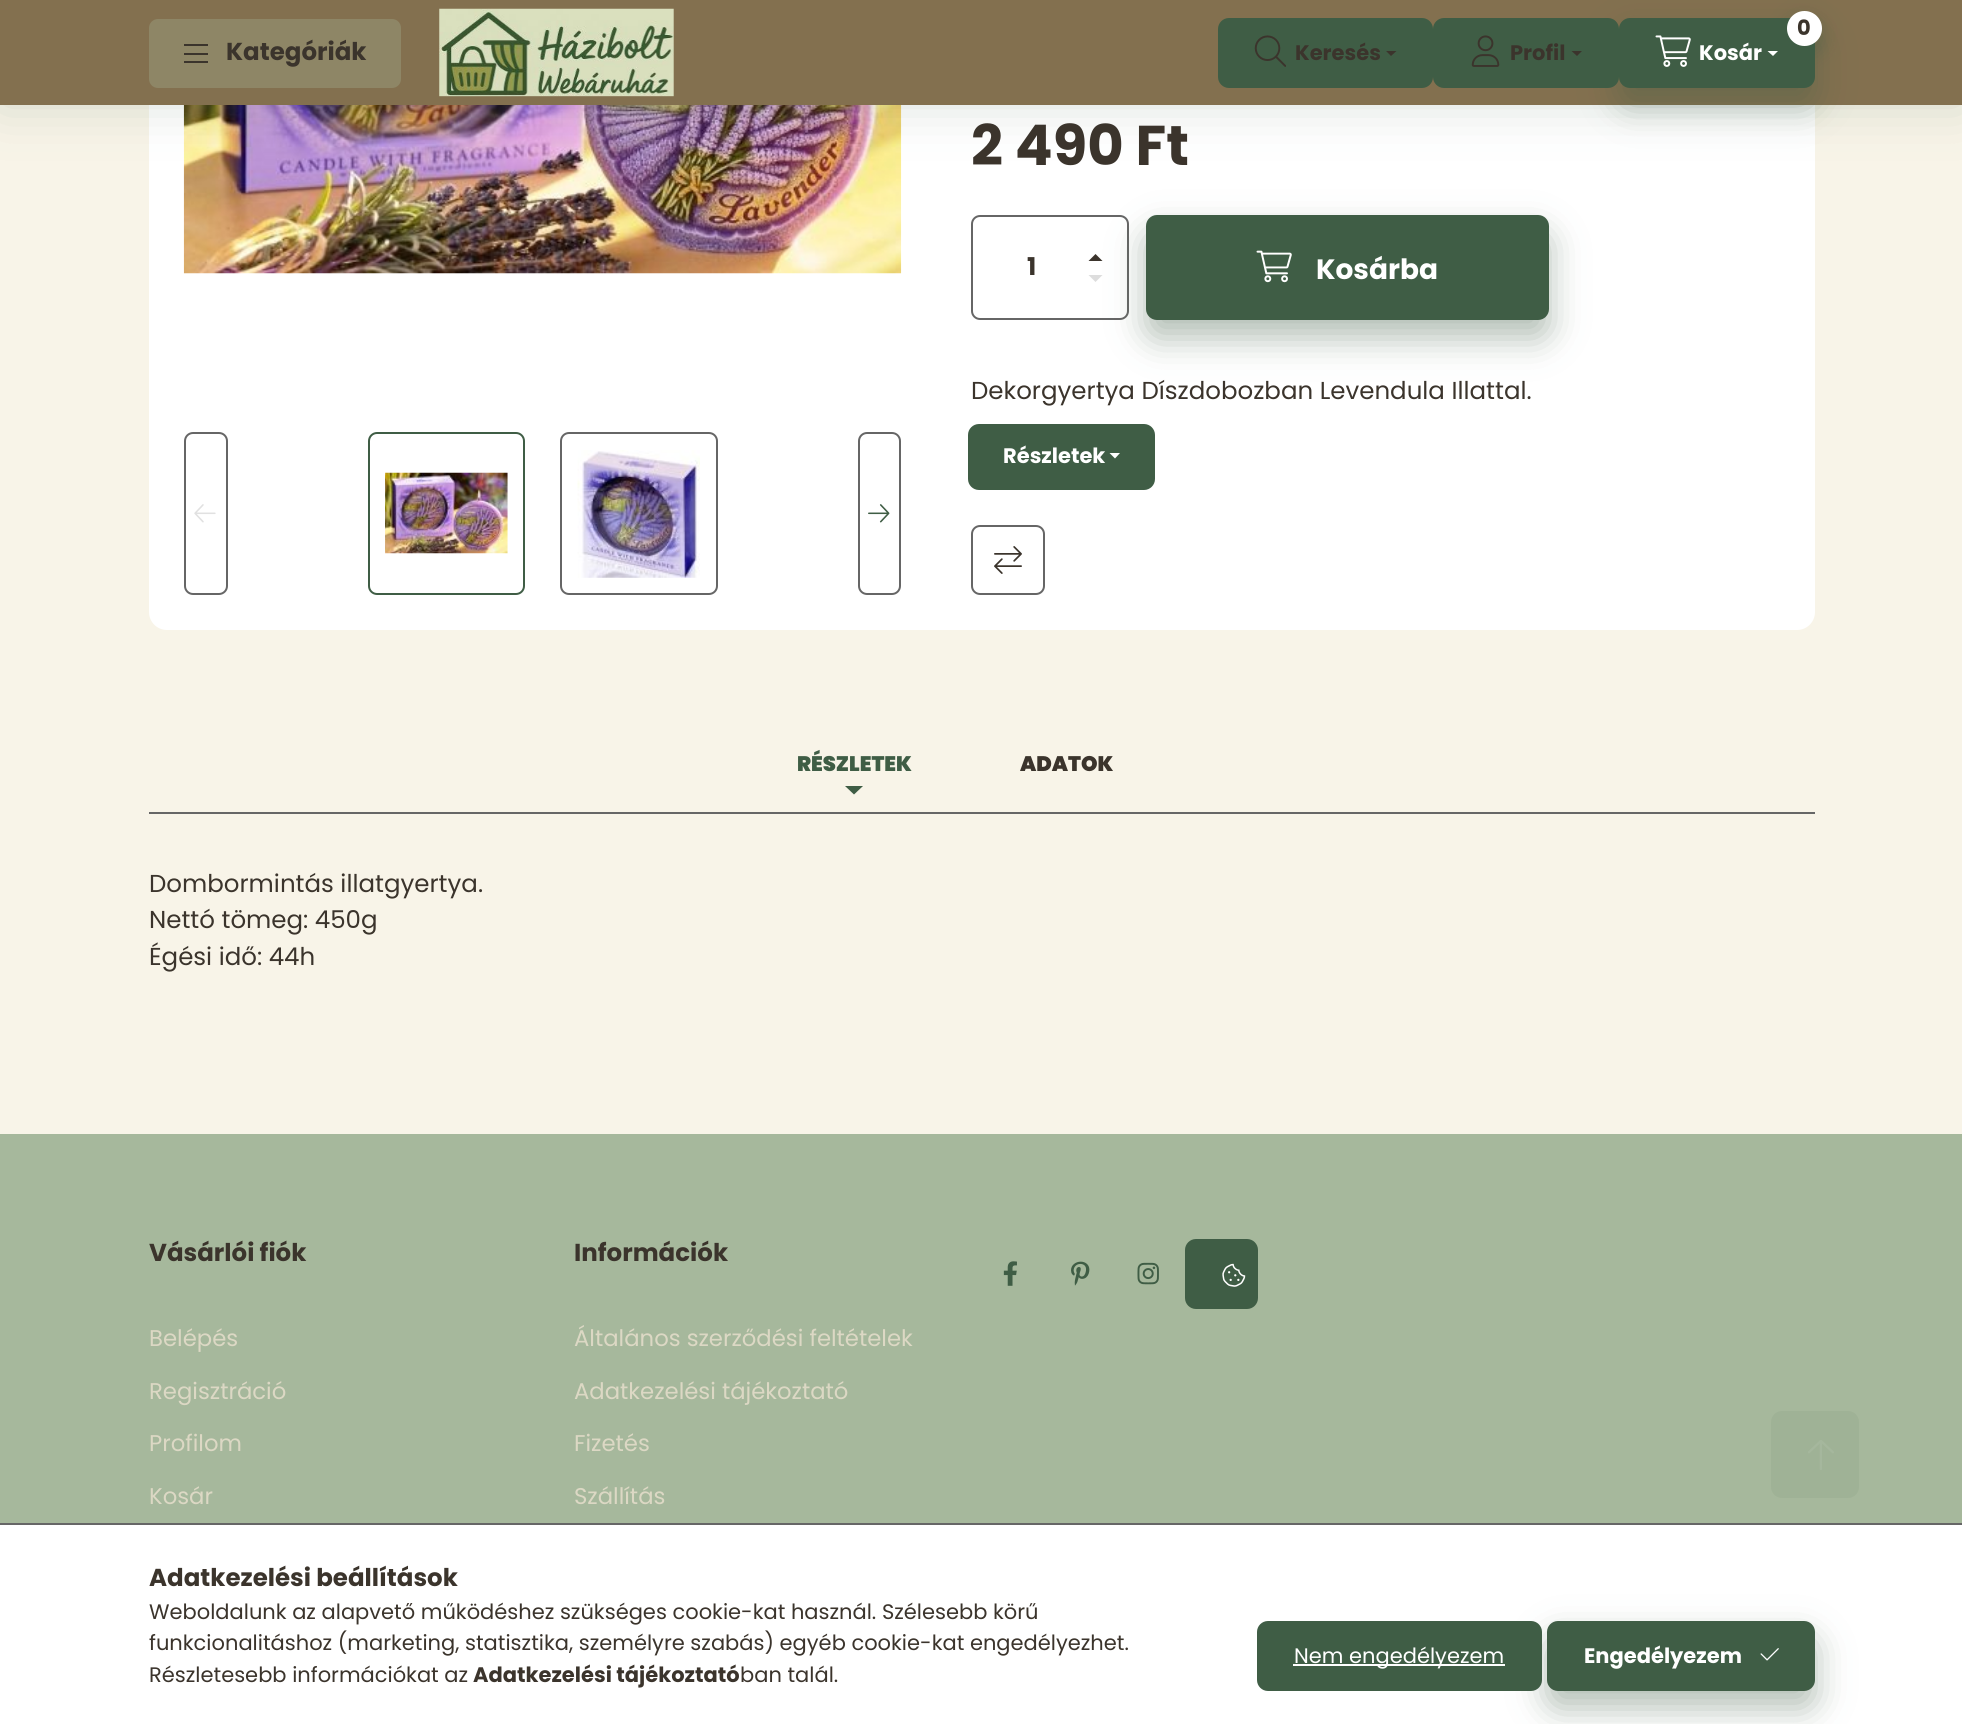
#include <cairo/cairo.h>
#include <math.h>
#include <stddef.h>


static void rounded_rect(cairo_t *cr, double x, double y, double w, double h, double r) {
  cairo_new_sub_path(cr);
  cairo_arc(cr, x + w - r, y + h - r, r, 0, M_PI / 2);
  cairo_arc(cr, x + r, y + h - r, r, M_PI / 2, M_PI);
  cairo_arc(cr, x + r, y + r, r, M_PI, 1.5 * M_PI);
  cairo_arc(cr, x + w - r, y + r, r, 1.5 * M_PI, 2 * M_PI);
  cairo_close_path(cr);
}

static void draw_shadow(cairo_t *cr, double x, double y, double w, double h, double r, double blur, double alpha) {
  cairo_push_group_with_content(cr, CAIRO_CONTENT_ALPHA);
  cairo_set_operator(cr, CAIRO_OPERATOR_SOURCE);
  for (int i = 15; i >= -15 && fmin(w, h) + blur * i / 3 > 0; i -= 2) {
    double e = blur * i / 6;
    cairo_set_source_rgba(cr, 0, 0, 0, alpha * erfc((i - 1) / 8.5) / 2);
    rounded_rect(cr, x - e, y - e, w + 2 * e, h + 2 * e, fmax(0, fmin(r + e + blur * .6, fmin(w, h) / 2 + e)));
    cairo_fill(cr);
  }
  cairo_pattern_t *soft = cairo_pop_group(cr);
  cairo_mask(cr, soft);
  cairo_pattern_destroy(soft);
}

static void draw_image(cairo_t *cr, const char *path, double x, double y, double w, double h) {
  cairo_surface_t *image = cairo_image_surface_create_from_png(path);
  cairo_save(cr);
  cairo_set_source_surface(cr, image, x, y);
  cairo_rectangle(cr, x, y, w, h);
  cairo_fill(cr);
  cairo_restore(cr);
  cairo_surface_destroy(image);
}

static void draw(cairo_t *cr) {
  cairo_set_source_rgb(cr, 248 / 255.0, 244 / 255.0, 232 / 255.0);
  cairo_paint(cr);
  cairo_set_source_rgb(cr, 1, 1, 1);
  rounded_rect(cr, 149, -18, 1666, 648, 18);
  cairo_fill(cr);
  draw_image(cr, "images/5.png", 183, 105, 719, 169);
  cairo_set_source_rgb(cr, 63 / 255.0, 93 / 255.0, 69 / 255.0);
  draw_shadow(cr, 0, 0, 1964, 105, 0, 26, 0.2);
  cairo_set_source_rgb(cr, 131 / 255.0, 112 / 255.0, 79 / 255.0);
  cairo_rectangle(cr, 0, 0, 1962, 105);
  cairo_fill(cr);
  cairo_set_source_rgb(cr, 142 / 255.0, 134 / 255.0, 102 / 255.0);
  rounded_rect(cr, 149, 19, 252, 69, 9);
  cairo_fill(cr);
  cairo_set_source_rgb(cr, 59 / 255.0, 52 / 255.0, 44 / 255.0);
  cairo_rectangle(cr, 184, 44, 24, 2);
  cairo_fill(cr);
  cairo_rectangle(cr, 184, 53, 24, 2);
  cairo_fill(cr);
  cairo_rectangle(cr, 184, 61, 24, 2);
  cairo_fill(cr);
  draw_image(cr, "images/1.png", 439, 8, 235, 89);
  cairo_set_source_rgb(cr, 63 / 255.0, 93 / 255.0, 69 / 255.0);
  rounded_rect(cr, 1218, 18, 215, 70, 11);
  cairo_fill(cr);
  draw_image(cr, "images/2.png", 1254, 35, 32, 32);
  cairo_set_source_rgb(cr, 59 / 255.0, 52 / 255.0, 44 / 255.0);
  cairo_new_path(cr);
  cairo_move_to(cr, 1386, 51);
  cairo_line_to(cr, 1396.5, 51);
  cairo_line_to(cr, 1391, 56);
  cairo_close_path(cr);
  cairo_fill(cr);
  cairo_set_source_rgb(cr, 63 / 255.0, 93 / 255.0, 69 / 255.0);
  rounded_rect(cr, 1433, 18, 186, 70, 11);
  cairo_fill(cr);
  draw_image(cr, "images/3.png", 1471, 35, 29, 32);
  cairo_set_source_rgb(cr, 63 / 255.0, 93 / 255.0, 69 / 255.0);
  draw_shadow(cr, 1619, 35, 196, 70, 11, 17.5, 0.4);
  cairo_set_source_rgb(cr, 59 / 255.0, 52 / 255.0, 44 / 255.0);
  cairo_new_path(cr);
  cairo_move_to(cr, 1571.5, 51);
  cairo_line_to(cr, 1582, 51);
  cairo_line_to(cr, 1577, 56);
  cairo_close_path(cr);
  cairo_fill(cr);
  cairo_set_source_rgb(cr, 63 / 255.0, 93 / 255.0, 69 / 255.0);
  rounded_rect(cr, 1619, 18, 196, 70, 11);
  cairo_fill(cr);
  cairo_set_source_rgb(cr, 63 / 255.0, 93 / 255.0, 69 / 255.0);
  draw_shadow(cr, 1787, 19, 35, 35, 17.5, 9, 0.4);
  cairo_set_source_rgb(cr, 1, 1, 1);
  cairo_arc(cr, 1804.5, 28.5, 17.5, 0, 2 * M_PI);
  cairo_fill(cr);
  draw_image(cr, "images/4.png", 1655, 35, 36, 32);
  cairo_new_path(cr);
  cairo_move_to(cr, 1767.5, 51);
  cairo_line_to(cr, 1778, 51);
  cairo_line_to(cr, 1773, 56);
  cairo_close_path(cr);
  cairo_fill(cr);
  rounded_rect(cr, 185, 433, 42, 161, 8);
  cairo_set_source_rgb(cr, 102 / 255.0, 102 / 255.0, 102 / 255.0);
  cairo_stroke(cr);
  draw_image(cr, "images/6.png", 194, 504, 22, 19);
  rounded_rect(cr, 369, 433, 155, 161, 8);
  cairo_set_source_rgb(cr, 63 / 255.0, 93 / 255.0, 69 / 255.0);
  cairo_stroke(cr);
  draw_image(cr, "images/7.png", 385, 472, 123, 82);
  rounded_rect(cr, 561, 433, 156, 161, 8);
  cairo_set_source_rgb(cr, 102 / 255.0, 102 / 255.0, 102 / 255.0);
  cairo_stroke(cr);
  draw_image(cr, "images/8.png", 577, 450, 123, 128);
  rounded_rect(cr, 859, 433, 41, 161, 8);
  cairo_stroke(cr);
  draw_image(cr, "images/9.png", 868, 504, 22, 19);
  rounded_rect(cr, 972, 216, 156, 103, 8);
  cairo_stroke(cr);
  cairo_set_source_rgb(cr, 59 / 255.0, 52 / 255.0, 44 / 255.0);
  cairo_new_path(cr);
  cairo_move_to(cr, 1102.5, 261);
  cairo_line_to(cr, 1088.5, 261);
  cairo_line_to(cr, 1095.5, 254);
  cairo_close_path(cr);
  cairo_fill(cr);
  cairo_set_source_rgb(cr, 221 / 255.0, 221 / 255.0, 221 / 255.0);
  cairo_new_path(cr);
  cairo_move_to(cr, 1088.5, 275);
  cairo_line_to(cr, 1102.5, 275);
  cairo_line_to(cr, 1095.5, 282);
  cairo_close_path(cr);
  cairo_fill(cr);
  cairo_set_source_rgb(cr, 63 / 255.0, 93 / 255.0, 69 / 255.0);
  draw_shadow(cr, 1146, 233, 403, 105, 11, 17.5, 0.4);
  cairo_set_source_rgb(cr, 63 / 255.0, 93 / 255.0, 69 / 255.0);
  rounded_rect(cr, 1146, 215, 403, 105, 11);
  cairo_fill(cr);
  draw_image(cr, "images/10.png", 1256, 250, 36, 33);
  rounded_rect(cr, 968, 424, 187, 66, 11);
  cairo_fill(cr);
  cairo_set_source_rgb(cr, 1, 1, 1);
  cairo_new_path(cr);
  cairo_move_to(cr, 1109.5, 453);
  cairo_line_to(cr, 1120, 453);
  cairo_line_to(cr, 1115, 458.5);
  cairo_close_path(cr);
  cairo_fill(cr);
  rounded_rect(cr, 972, 526, 72, 68, 8);
  cairo_set_source_rgb(cr, 102 / 255.0, 102 / 255.0, 102 / 255.0);
  cairo_stroke(cr);
  draw_image(cr, "images/11.png", 994, 546, 28, 28);
  cairo_rectangle(cr, 149, 812, 1666, 2);
  cairo_fill(cr);
  cairo_set_source_rgb(cr, 63 / 255.0, 93 / 255.0, 69 / 255.0);
  cairo_new_path(cr);
  cairo_move_to(cr, 845, 786);
  cairo_line_to(cr, 863, 786);
  cairo_line_to(cr, 854, 794.5);
  cairo_close_path(cr);
  cairo_fill(cr);
  cairo_set_source_rgb(cr, 166 / 255.0, 184 / 255.0, 156 / 255.0);
  cairo_rectangle(cr, 0, 1134, 1962, 389);
  cairo_fill(cr);
  draw_image(cr, "images/12.png", 1003, 1261, 14, 25);
  draw_image(cr, "images/13.png", 1071, 1261, 19, 25);
  draw_image(cr, "images/14.png", 1137, 1262, 22, 23);
  cairo_set_source_rgb(cr, 63 / 255.0, 93 / 255.0, 69 / 255.0);
  rounded_rect(cr, 1185, 1239, 73, 70, 11);
  cairo_fill(cr);
  draw_image(cr, "images/15.png", 1222, 1263, 24, 24);
  cairo_set_source_rgb(cr, 159 / 255.0, 178 / 255.0, 150 / 255.0);
  rounded_rect(cr, 1771, 1411, 88, 87, 11);
  cairo_fill(cr);
  draw_image(cr, "images/16.png", 1808, 1440, 26, 30);
  cairo_set_source_rgb(cr, 1, 1, 1);
  cairo_rectangle(cr, 0, 1525, 1962, 199);
  cairo_fill(cr);
  cairo_set_source_rgb(cr, 102 / 255.0, 102 / 255.0, 102 / 255.0);
  cairo_rectangle(cr, 0, 1523, 1962, 2);
  cairo_fill(cr);
  cairo_set_source_rgb(cr, 63 / 255.0, 93 / 255.0, 69 / 255.0);
  rounded_rect(cr, 1257, 1621, 285, 70, 11);
  cairo_fill(cr);
  cairo_set_source_rgb(cr, 1, 1, 1);
  cairo_rectangle(cr, 1293, 1664, 212, 2);
  cairo_fill(cr);
  cairo_set_source_rgb(cr, 63 / 255.0, 93 / 255.0, 69 / 255.0);
  draw_shadow(cr, 1547, 1638, 268, 70, 11, 17.5, 0.4);
  cairo_set_source_rgb(cr, 63 / 255.0, 93 / 255.0, 69 / 255.0);
  rounded_rect(cr, 1548, 1622, 266, 68, 10);
  cairo_fill_preserve(cr);
  cairo_stroke(cr);
  draw_image(cr, "images/17.png", 1760, 1648, 19, 13);
  cairo_select_font_face(cr, "Poppins", CAIRO_FONT_SLANT_NORMAL, CAIRO_FONT_WEIGHT_BOLD);
  cairo_set_font_size(cr, 24.5);
  cairo_set_source_rgb(cr, 59 / 255.0, 52 / 255.0, 44 / 255.0);
  cairo_move_to(cr, 226, 60);
  cairo_show_text(cr, "Kategóriák");
  cairo_set_font_size(cr, 21);
  cairo_move_to(cr, 1295, 60);
  cairo_show_text(cr, "Keresés");
  cairo_move_to(cr, 1510, 60);
  cairo_show_text(cr, "Profil");
  cairo_move_to(cr, 1797, 35);
  cairo_show_text(cr, "0");
  cairo_set_source_rgb(cr, 1, 1, 1);
  cairo_move_to(cr, 1699, 60);
  cairo_show_text(cr, "Kosár");
  cairo_set_font_size(cr, 56);
  cairo_set_source_rgb(cr, 59 / 255.0, 52 / 255.0, 44 / 255.0);
  cairo_move_to(cr, 971, 165);
  cairo_show_text(cr, "2 490 Ft");
  cairo_set_font_size(cr, 24.5);
  cairo_move_to(cr, 1027, 275);
  cairo_show_text(cr, "1");
  cairo_set_font_size(cr, 28);
  cairo_set_source_rgb(cr, 1, 1, 1);
  cairo_move_to(cr, 1316, 279);
  cairo_show_text(cr, "Kosárba");
  cairo_select_font_face(cr, "Poppins", CAIRO_FONT_SLANT_NORMAL, CAIRO_FONT_WEIGHT_NORMAL);
  cairo_set_font_size(cr, 24.5);
  cairo_set_source_rgb(cr, 59 / 255.0, 52 / 255.0, 44 / 255.0);
  cairo_move_to(cr, 971, 399);
  cairo_show_text(cr, "Dekorgyertya Díszdobozban Levendula Illattal.");
  cairo_select_font_face(cr, "Poppins", CAIRO_FONT_SLANT_NORMAL, CAIRO_FONT_WEIGHT_BOLD);
  cairo_set_font_size(cr, 21);
  cairo_set_source_rgb(cr, 1, 1, 1);
  cairo_move_to(cr, 1003, 463);
  cairo_show_text(cr, "Részletek");
  cairo_select_font_face(cr, "Poppins Black", CAIRO_FONT_SLANT_NORMAL, CAIRO_FONT_WEIGHT_NORMAL);
  cairo_set_source_rgb(cr, 63 / 255.0, 93 / 255.0, 69 / 255.0);
  cairo_move_to(cr, 797, 771);
  cairo_show_text(cr, "RÉSZLETEK");
  cairo_set_source_rgb(cr, 59 / 255.0, 52 / 255.0, 44 / 255.0);
  cairo_move_to(cr, 1020, 771);
  cairo_show_text(cr, "ADATOK");
  cairo_select_font_face(cr, "Poppins", CAIRO_FONT_SLANT_NORMAL, CAIRO_FONT_WEIGHT_NORMAL);
  cairo_set_font_size(cr, 24.5);
  cairo_move_to(cr, 149, 892);
  cairo_show_text(cr, "Dombormintás illatgyertya.");
  cairo_move_to(cr, 149, 928);
  cairo_show_text(cr, "Nettó tömeg: 450g");
  cairo_move_to(cr, 149, 965);
  cairo_show_text(cr, "Égési idő: 44h");
  cairo_select_font_face(cr, "Poppins", CAIRO_FONT_SLANT_NORMAL, CAIRO_FONT_WEIGHT_BOLD);
  cairo_move_to(cr, 149, 1261);
  cairo_show_text(cr, "Vásárlói fiók");
  cairo_select_font_face(cr, "Poppins", CAIRO_FONT_SLANT_NORMAL, CAIRO_FONT_WEIGHT_NORMAL);
  cairo_set_font_size(cr, 22.75);
  cairo_set_source_rgb(cr, 220 / 255.0, 216 / 255.0, 196 / 255.0);
  cairo_move_to(cr, 149, 1346);
  cairo_show_text(cr, "Belépés");
  cairo_move_to(cr, 149, 1399);
  cairo_show_text(cr, "Regisztráció");
  cairo_move_to(cr, 149, 1451);
  cairo_show_text(cr, "Profilom");
  cairo_move_to(cr, 149, 1504);
  cairo_show_text(cr, "Kosár");
  cairo_select_font_face(cr, "Poppins", CAIRO_FONT_SLANT_NORMAL, CAIRO_FONT_WEIGHT_BOLD);
  cairo_set_font_size(cr, 24.5);
  cairo_set_source_rgb(cr, 59 / 255.0, 52 / 255.0, 44 / 255.0);
  cairo_move_to(cr, 574, 1261);
  cairo_show_text(cr, "Információk");
  cairo_select_font_face(cr, "Poppins", CAIRO_FONT_SLANT_NORMAL, CAIRO_FONT_WEIGHT_NORMAL);
  cairo_set_font_size(cr, 22.75);
  cairo_set_source_rgb(cr, 220 / 255.0, 216 / 255.0, 196 / 255.0);
  cairo_move_to(cr, 574, 1346);
  cairo_show_text(cr, "Általános szerződési feltételek");
  cairo_move_to(cr, 574, 1399);
  cairo_show_text(cr, "Adatkezelési tájékoztató");
  cairo_move_to(cr, 574, 1451);
  cairo_show_text(cr, "Fizetés");
  cairo_move_to(cr, 574, 1504);
  cairo_show_text(cr, "Szállítás");
  cairo_select_font_face(cr, "Poppins", CAIRO_FONT_SLANT_NORMAL, CAIRO_FONT_WEIGHT_BOLD);
  cairo_set_font_size(cr, 24.5);
  cairo_set_source_rgb(cr, 59 / 255.0, 52 / 255.0, 44 / 255.0);
  cairo_move_to(cr, 149, 1586);
  cairo_show_text(cr, "Adatkezelési beállítások");
  cairo_select_font_face(cr, "Poppins", CAIRO_FONT_SLANT_NORMAL, CAIRO_FONT_WEIGHT_NORMAL);
  cairo_set_font_size(cr, 21);
  cairo_move_to(cr, 149, 1619);
  cairo_show_text(cr, "Weboldalunk az alapvető működéshez szükséges cookie-kat használ. Szélesebb körű");
  cairo_move_to(cr, 149, 1650);
  cairo_show_text(cr, "funkcionalitáshoz (marketing, statisztika, személyre szabás) egyéb cookie-kat engedélyezhet.");
  cairo_move_to(cr, 149, 1682);
  cairo_show_text(cr, "Részletesebb információkat az");
  cairo_select_font_face(cr, "Poppins", CAIRO_FONT_SLANT_NORMAL, CAIRO_FONT_WEIGHT_BOLD);
  cairo_move_to(cr, 473, 1682);
  cairo_show_text(cr, "Adatkezelési tájékoztató");
  cairo_select_font_face(cr, "Poppins", CAIRO_FONT_SLANT_NORMAL, CAIRO_FONT_WEIGHT_NORMAL);
  cairo_move_to(cr, 740, 1682);
  cairo_show_text(cr, "ban talál.");
  cairo_set_source_rgb(cr, 1, 1, 1);
  cairo_move_to(cr, 1294, 1663);
  cairo_show_text(cr, "Nem engedélyezem");
  cairo_select_font_face(cr, "Poppins", CAIRO_FONT_SLANT_NORMAL, CAIRO_FONT_WEIGHT_BOLD);
  cairo_move_to(cr, 1584, 1663);
  cairo_show_text(cr, "Engedélyezem");
}

int main(void) {
  cairo_surface_t *surface = cairo_image_surface_create(CAIRO_FORMAT_RGB24, 1962, 1724);
  cairo_t *cr = cairo_create(surface);
  cairo_font_options_t *options = cairo_font_options_create();
  cairo_font_options_set_hint_metrics(options, CAIRO_HINT_METRICS_OFF);
  cairo_font_options_set_hint_style(options, CAIRO_HINT_STYLE_NONE);
  cairo_set_font_options(cr, options);
  cairo_set_miter_limit(cr, 4);
  draw(cr);
  cairo_surface_write_to_png(surface, "out.png");
  cairo_font_options_destroy(options);
  cairo_destroy(cr);
  cairo_surface_destroy(surface);
  return 0;
}
